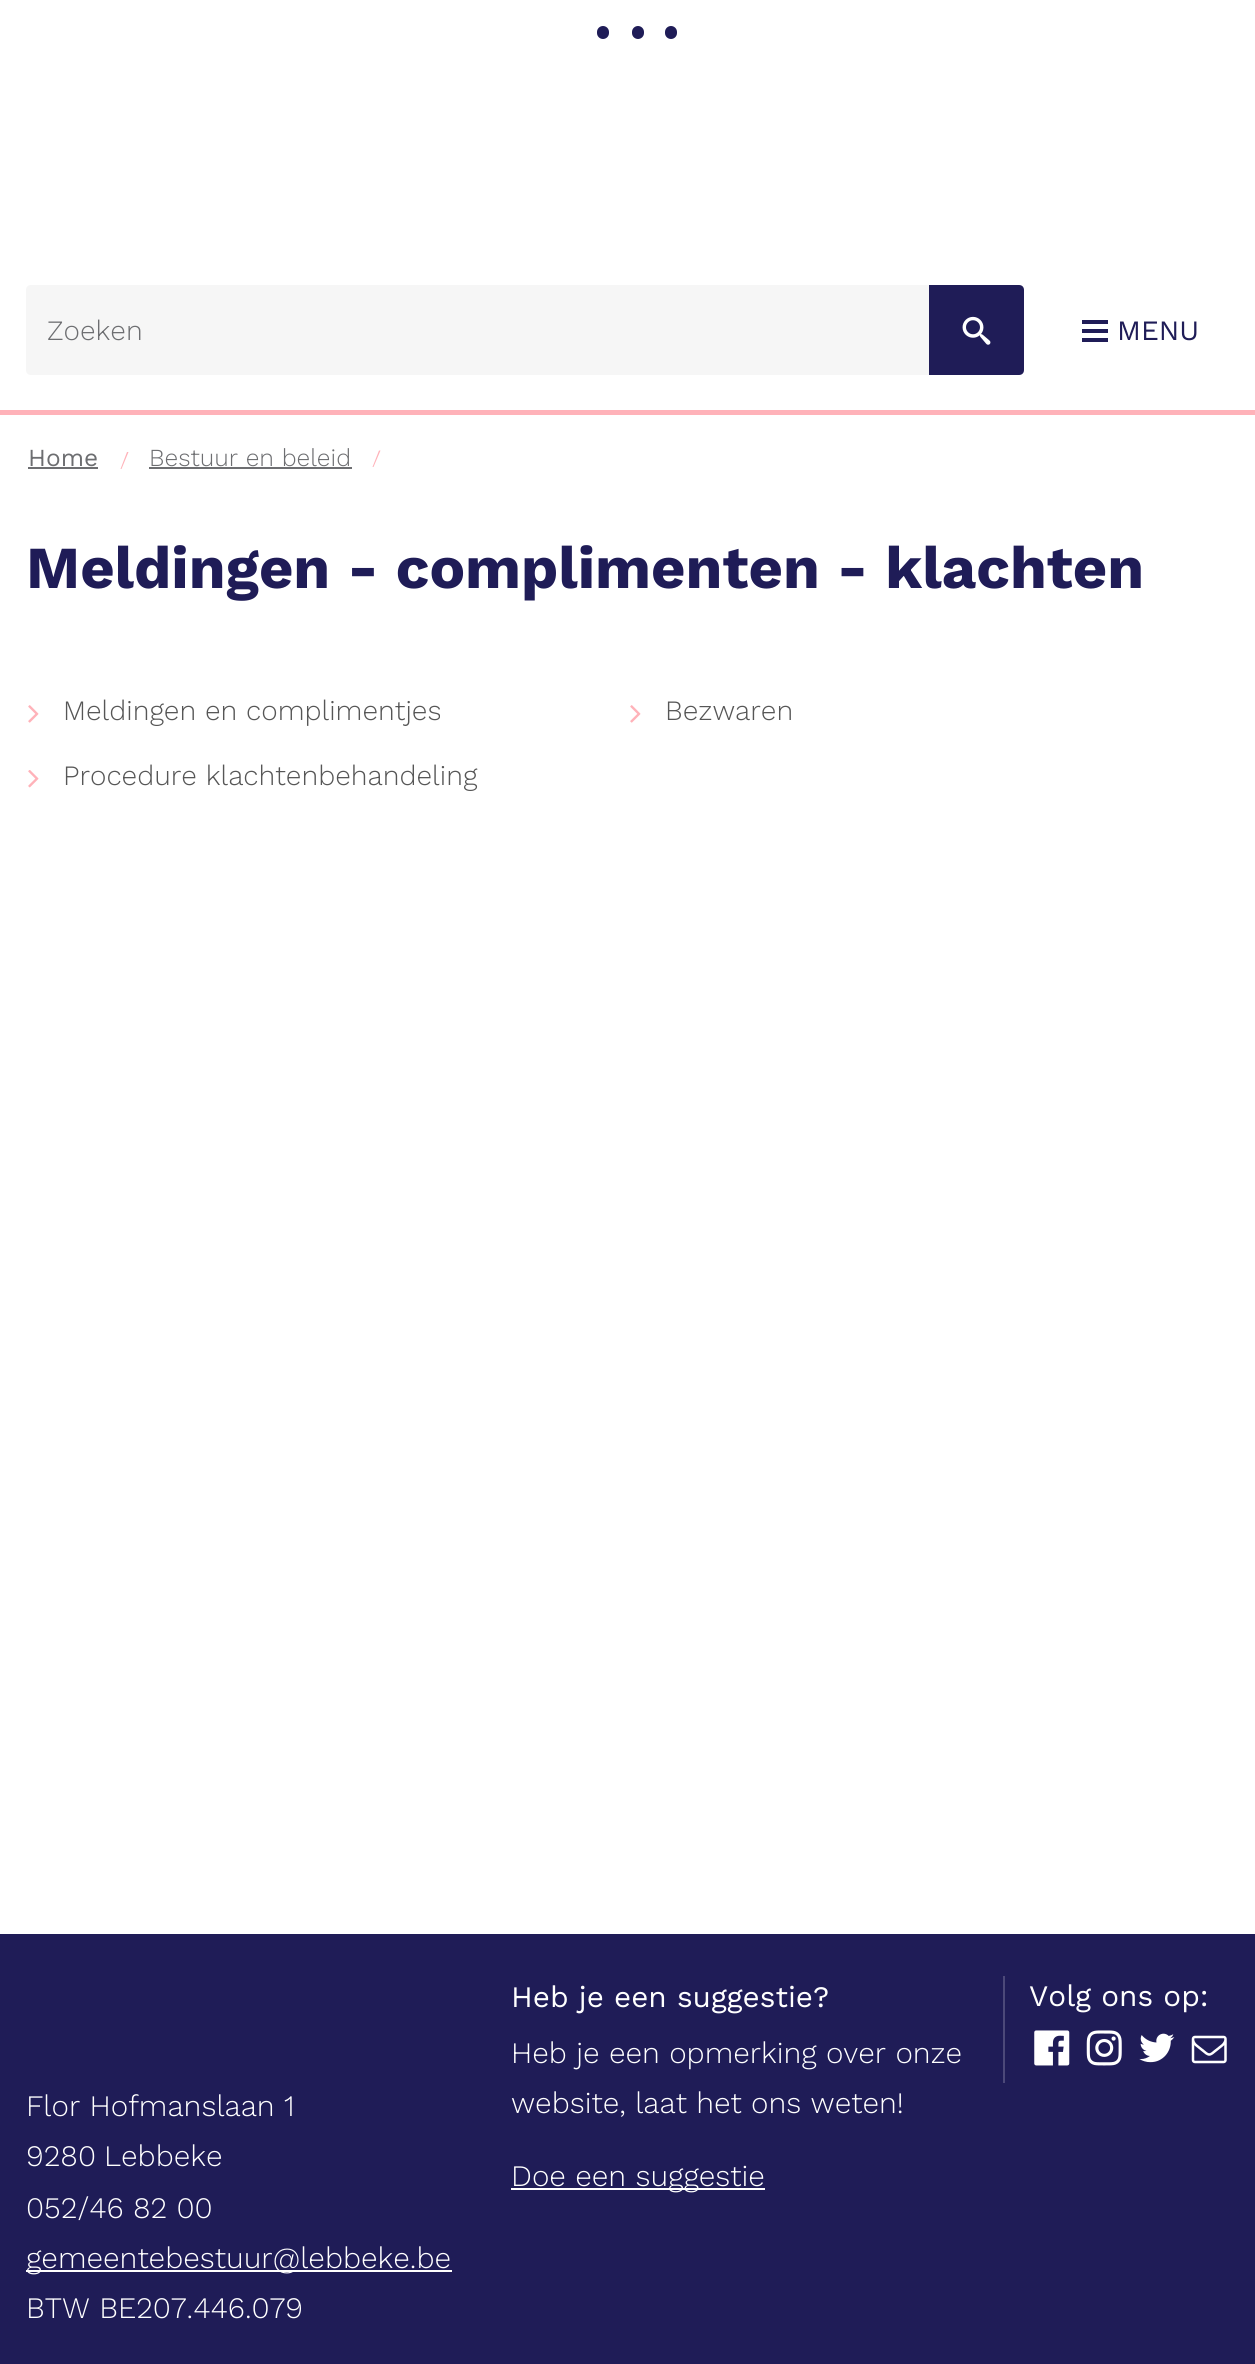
#include <cairo/cairo.h>
#include <math.h>
#include <stddef.h>


static void rounded_rect(cairo_t *cr, double x, double y, double w, double h, double r) {
  cairo_new_sub_path(cr);
  cairo_arc(cr, x + w - r, y + h - r, r, 0, M_PI / 2);
  cairo_arc(cr, x + r, y + h - r, r, M_PI / 2, M_PI);
  cairo_arc(cr, x + r, y + r, r, M_PI, 1.5 * M_PI);
  cairo_arc(cr, x + w - r, y + r, r, 1.5 * M_PI, 2 * M_PI);
  cairo_close_path(cr);
}

static void draw_image(cairo_t *cr, const char *path, double x, double y, double w, double h) {
  cairo_surface_t *image = cairo_image_surface_create_from_png(path);
  cairo_save(cr);
  cairo_set_source_surface(cr, image, x, y);
  cairo_rectangle(cr, x, y, w, h);
  cairo_fill(cr);
  cairo_restore(cr);
  cairo_surface_destroy(image);
}

static void draw(cairo_t *cr) {
  cairo_set_source_rgb(cr, 1, 1, 1);
  cairo_paint(cr);
  cairo_set_source_rgb(cr, 31 / 255.0, 28 / 255.0, 87 / 255.0);
  rounded_rect(cr, 597, 26, 12, 13, 6);
  cairo_fill(cr);
  rounded_rect(cr, 632, 26, 12, 13, 6);
  cairo_fill(cr);
  rounded_rect(cr, 665, 26, 12, 13, 6);
  cairo_fill(cr);
  cairo_set_source_rgb(cr, 246 / 255.0, 246 / 255.0, 246 / 255.0);
  cairo_new_path(cr);
  cairo_move_to(cr, 31, 285);
  cairo_line_to(cr, 929, 285);
  cairo_line_to(cr, 929, 375);
  cairo_line_to(cr, 31, 375);
  cairo_curve_to(cr, 28, 375, 26, 373, 26, 370);
  cairo_line_to(cr, 26, 290);
  cairo_curve_to(cr, 26, 287, 28, 285, 31, 285);
  cairo_close_path(cr);
  cairo_fill(cr);
  cairo_set_source_rgb(cr, 31 / 255.0, 28 / 255.0, 87 / 255.0);
  cairo_new_path(cr);
  cairo_move_to(cr, 929, 285);
  cairo_line_to(cr, 1019, 285);
  cairo_curve_to(cr, 1022, 285, 1024, 287, 1024, 290);
  cairo_line_to(cr, 1024, 370);
  cairo_curve_to(cr, 1024, 373, 1022, 375, 1019, 375);
  cairo_line_to(cr, 929, 375);
  cairo_close_path(cr);
  cairo_fill(cr);
  draw_image(cr, "images/1.png", 962, 316, 29, 29);
  cairo_rectangle(cr, 1082, 329, 26, 4);
  cairo_fill(cr);
  cairo_rectangle(cr, 1082, 320, 26, 4);
  cairo_fill(cr);
  cairo_rectangle(cr, 1082, 338, 26, 4);
  cairo_fill(cr);
  cairo_set_source_rgb(cr, 1, 178 / 255.0, 185 / 255.0);
  cairo_rectangle(cr, 0, 410, 1255, 5);
  cairo_fill(cr);
  cairo_set_source_rgb(cr, 109 / 255.0, 110 / 255.0, 113 / 255.0);
  cairo_rectangle(cr, 28, 467, 70, 2);
  cairo_fill(cr);
  cairo_set_source_rgb(cr, 1, 178 / 255.0, 185 / 255.0);
  cairo_new_path(cr);
  cairo_move_to(cr, 128.5, 452);
  cairo_line_to(cr, 121.5, 469);
  cairo_line_to(cr, 120.5, 469);
  cairo_line_to(cr, 127, 452);
  cairo_close_path(cr);
  cairo_fill(cr);
  cairo_set_source_rgb(cr, 109 / 255.0, 110 / 255.0, 113 / 255.0);
  cairo_rectangle(cr, 149, 467, 203, 2);
  cairo_fill(cr);
  cairo_set_source_rgb(cr, 1, 178 / 255.0, 185 / 255.0);
  cairo_new_path(cr);
  cairo_move_to(cr, 380.5, 450.5);
  cairo_line_to(cr, 373.5, 467);
  cairo_line_to(cr, 372.5, 467);
  cairo_line_to(cr, 379, 450.5);
  cairo_close_path(cr);
  cairo_fill(cr);
  draw_image(cr, "images/2.png", 28, 705, 11, 18);
  draw_image(cr, "images/2.png", 630, 705, 11, 18);
  draw_image(cr, "images/3.png", 28, 770, 11, 18);
  cairo_set_source_rgb(cr, 31 / 255.0, 28 / 255.0, 87 / 255.0);
  cairo_rectangle(cr, 0, 1934, 1255, 430);
  cairo_fill(cr);
  cairo_set_source_rgb(cr, 1, 1, 1);
  cairo_rectangle(cr, 26, 2270, 426, 2);
  cairo_fill(cr);
  cairo_rectangle(cr, 511, 2188, 254, 2);
  cairo_fill(cr);
  cairo_set_source_rgb(cr, 76 / 255.0, 73 / 255.0, 121 / 255.0);
  cairo_rectangle(cr, 1003, 1976, 2, 107);
  cairo_fill(cr);
  draw_image(cr, "images/4.png", 1034, 2030, 36, 36);
  draw_image(cr, "images/5.png", 1086, 2030, 36, 36);
  draw_image(cr, "images/6.png", 1139, 2033, 36, 30);
  draw_image(cr, "images/7.png", 1191, 2035, 36, 29);
  cairo_select_font_face(cr, "Work Sans Light", CAIRO_FONT_SLANT_NORMAL, CAIRO_FONT_WEIGHT_NORMAL);
  cairo_set_font_size(cr, 28);
  cairo_set_source_rgb(cr, 109 / 255.0, 110 / 255.0, 113 / 255.0);
  cairo_move_to(cr, 47, 340);
  cairo_show_text(cr, "Zoeken");
  cairo_select_font_face(cr, "Work Sans", CAIRO_FONT_SLANT_NORMAL, CAIRO_FONT_WEIGHT_NORMAL);
  cairo_set_source_rgb(cr, 31 / 255.0, 28 / 255.0, 87 / 255.0);
  cairo_move_to(cr, 1117, 340);
  cairo_show_text(cr, "MENU");
  cairo_set_font_size(cr, 24.5);
  cairo_set_source_rgb(cr, 109 / 255.0, 110 / 255.0, 113 / 255.0);
  cairo_move_to(cr, 28, 466);
  cairo_show_text(cr, "Home");
  cairo_select_font_face(cr, "Work Sans Light", CAIRO_FONT_SLANT_NORMAL, CAIRO_FONT_WEIGHT_NORMAL);
  cairo_move_to(cr, 149, 466);
  cairo_show_text(cr, "Bestuur en beleid");
  cairo_select_font_face(cr, "Work Sans", CAIRO_FONT_SLANT_NORMAL, CAIRO_FONT_WEIGHT_BOLD);
  cairo_set_font_size(cr, 59.5);
  cairo_set_source_rgb(cr, 31 / 255.0, 28 / 255.0, 87 / 255.0);
  cairo_move_to(cr, 26, 588);
  cairo_show_text(cr, "Meldingen - complimenten - klachten");
  cairo_select_font_face(cr, "Work Sans Light", CAIRO_FONT_SLANT_NORMAL, CAIRO_FONT_WEIGHT_NORMAL);
  cairo_set_font_size(cr, 28);
  cairo_set_source_rgb(cr, 86 / 255.0, 86 / 255.0, 86 / 255.0);
  cairo_move_to(cr, 63, 720);
  cairo_show_text(cr, "Meldingen en complimentjes");
  cairo_move_to(cr, 665, 720);
  cairo_show_text(cr, "Bezwaren");
  cairo_move_to(cr, 63, 785);
  cairo_show_text(cr, "Procedure klachtenbehandeling");
  cairo_set_font_size(cr, 29.75);
  cairo_set_source_rgb(cr, 1, 1, 1);
  cairo_move_to(cr, 26, 2116);
  cairo_show_text(cr, "Flor Hofmanslaan 1");
  cairo_move_to(cr, 26, 2166);
  cairo_show_text(cr, "9280");
  cairo_move_to(cr, 104, 2166);
  cairo_show_text(cr, "Lebbeke");
  cairo_move_to(cr, 26, 2218);
  cairo_show_text(cr, "052/46 82 00");
  cairo_move_to(cr, 26, 2268);
  cairo_show_text(cr, "gemeentebestuur@lebbeke.be");
  cairo_move_to(cr, 26, 2318);
  cairo_show_text(cr, "BTW BE207.446.079");
  cairo_select_font_face(cr, "Work Sans", CAIRO_FONT_SLANT_NORMAL, CAIRO_FONT_WEIGHT_NORMAL);
  cairo_move_to(cr, 511, 2007);
  cairo_show_text(cr, "Heb je een suggestie?");
  cairo_select_font_face(cr, "Work Sans Light", CAIRO_FONT_SLANT_NORMAL, CAIRO_FONT_WEIGHT_NORMAL);
  cairo_move_to(cr, 511, 2063);
  cairo_show_text(cr, "Heb je een opmerking over onze");
  cairo_move_to(cr, 511, 2113);
  cairo_show_text(cr, "website, laat het ons weten!");
  cairo_move_to(cr, 511, 2186);
  cairo_show_text(cr, "Doe een suggestie");
  cairo_select_font_face(cr, "Work Sans", CAIRO_FONT_SLANT_NORMAL, CAIRO_FONT_WEIGHT_NORMAL);
  cairo_move_to(cr, 1029, 2006);
  cairo_show_text(cr, "Volg ons op:");
}

int main(void) {
  cairo_surface_t *surface = cairo_image_surface_create(CAIRO_FORMAT_RGB24, 1255, 2364);
  cairo_t *cr = cairo_create(surface);
  cairo_font_options_t *options = cairo_font_options_create();
  cairo_font_options_set_hint_metrics(options, CAIRO_HINT_METRICS_OFF);
  cairo_font_options_set_hint_style(options, CAIRO_HINT_STYLE_NONE);
  cairo_set_font_options(cr, options);
  cairo_set_miter_limit(cr, 4);
  draw(cr);
  cairo_surface_write_to_png(surface, "out.png");
  cairo_font_options_destroy(options);
  cairo_destroy(cr);
  cairo_surface_destroy(surface);
  return 0;
}
